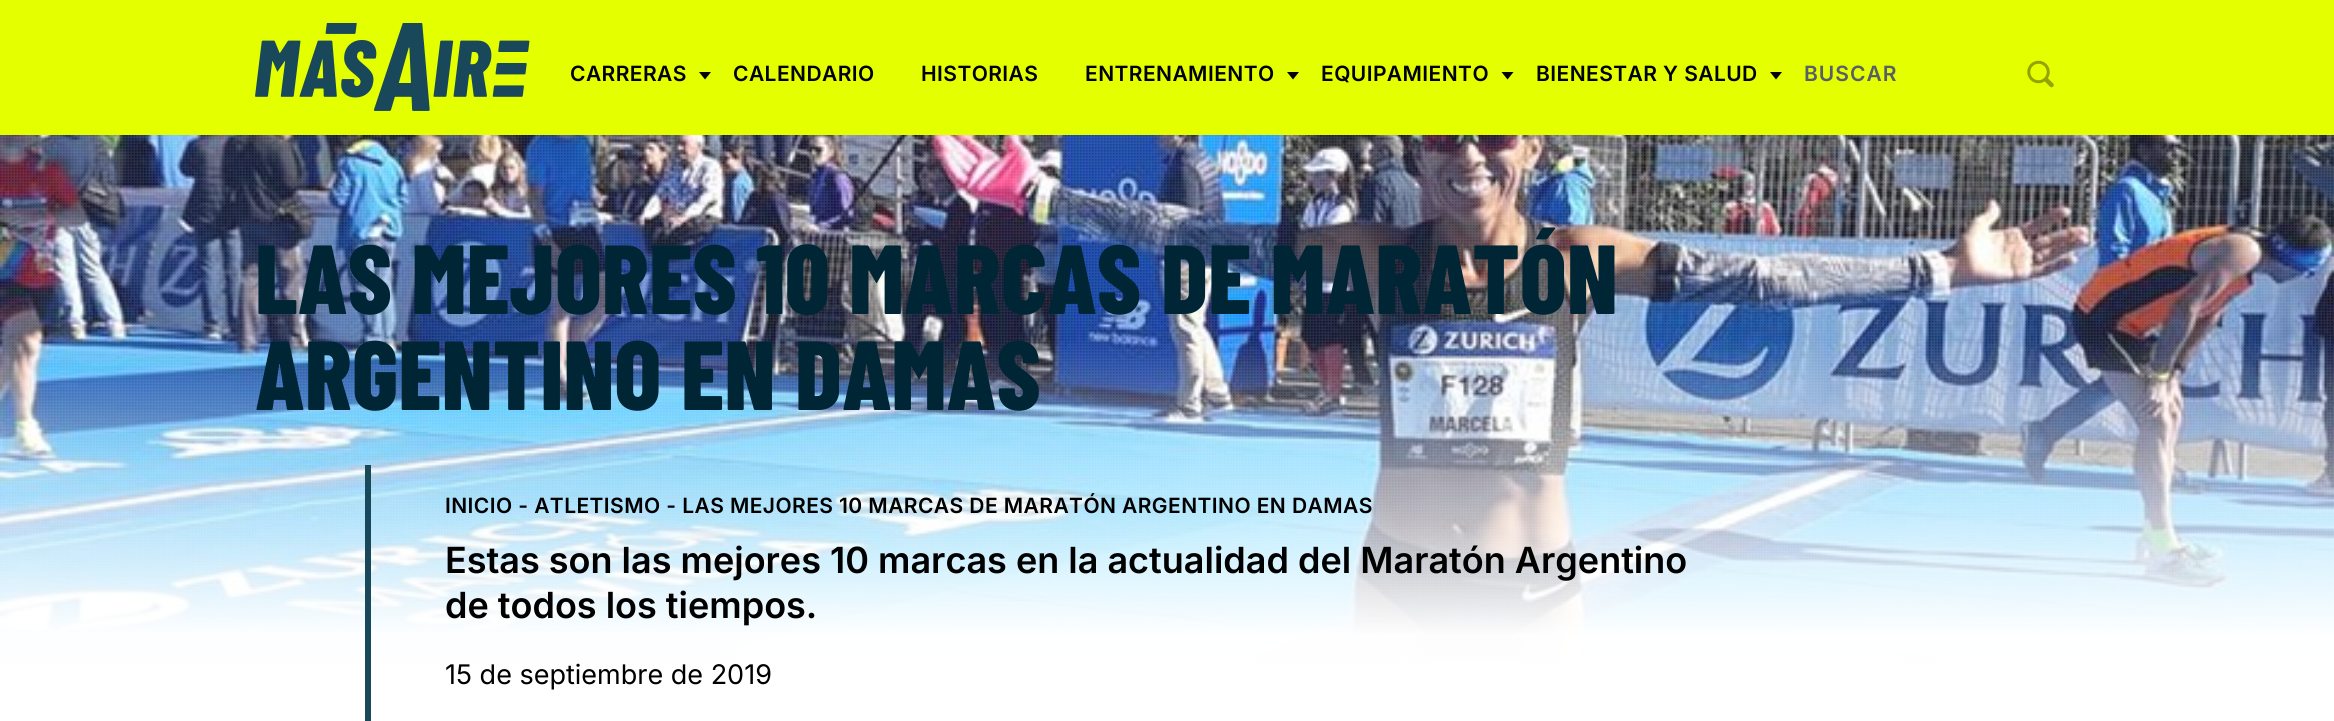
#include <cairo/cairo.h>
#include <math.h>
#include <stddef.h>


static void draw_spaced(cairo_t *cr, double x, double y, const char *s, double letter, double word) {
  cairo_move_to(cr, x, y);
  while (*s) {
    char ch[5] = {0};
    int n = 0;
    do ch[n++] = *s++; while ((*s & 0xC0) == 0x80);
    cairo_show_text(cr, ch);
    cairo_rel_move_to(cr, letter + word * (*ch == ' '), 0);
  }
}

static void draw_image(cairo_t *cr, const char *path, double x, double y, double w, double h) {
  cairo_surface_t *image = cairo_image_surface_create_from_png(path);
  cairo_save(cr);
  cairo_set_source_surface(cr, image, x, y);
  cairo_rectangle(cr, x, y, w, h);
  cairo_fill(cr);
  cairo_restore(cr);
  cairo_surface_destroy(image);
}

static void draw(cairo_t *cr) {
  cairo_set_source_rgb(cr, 1, 1, 1);
  cairo_paint(cr);
  cairo_set_source_rgb(cr, 228 / 255.0, 1, 0);
  cairo_rectangle(cr, 0, 0, 2334, 135);
  cairo_fill(cr);
  draw_image(cr, "images/1.png", 255, 23, 275, 88);
  cairo_set_source_rgb(cr, 0, 0, 0);
  cairo_new_path(cr);
  cairo_move_to(cr, 699, 72);
  cairo_line_to(cr, 711, 72);
  cairo_line_to(cr, 705, 79.5);
  cairo_close_path(cr);
  cairo_fill(cr);
  cairo_new_path(cr);
  cairo_move_to(cr, 1287, 72);
  cairo_line_to(cr, 1299, 72);
  cairo_line_to(cr, 1293, 79.5);
  cairo_close_path(cr);
  cairo_fill(cr);
  cairo_new_path(cr);
  cairo_move_to(cr, 1501.5, 72);
  cairo_line_to(cr, 1513.5, 72);
  cairo_line_to(cr, 1507.5, 79.5);
  cairo_close_path(cr);
  cairo_fill(cr);
  cairo_new_path(cr);
  cairo_move_to(cr, 1770, 72);
  cairo_line_to(cr, 1782, 72);
  cairo_line_to(cr, 1776, 79.5);
  cairo_close_path(cr);
  cairo_fill(cr);
  draw_image(cr, "images/2.png", 2027, 60, 27, 28);
  draw_image(cr, "images/3.png", 0, 135, 2334, 522);
  draw_image(cr, "images/4.png", 0, 135, 2334, 586);
  cairo_set_source_rgb(cr, 26 / 255.0, 72 / 255.0, 91 / 255.0);
  cairo_rectangle(cr, 365, 465, 6, 256);
  cairo_fill(cr);
  cairo_select_font_face(cr, "Inter SemiBold", CAIRO_FONT_SLANT_NORMAL, CAIRO_FONT_WEIGHT_NORMAL);
  cairo_set_font_size(cr, 21);
  cairo_set_source_rgb(cr, 0, 0, 0);
  draw_spaced(cr, 570, 81, "CARRERAS", 0.42, 0);
  draw_spaced(cr, 733, 81, "CALENDARIO", 0.42, 0);
  draw_spaced(cr, 921, 81, "HISTORIAS", 0.42, 0);
  draw_spaced(cr, 1085, 81, "ENTRENAMIENTO", 0.42, 0);
  draw_spaced(cr, 1321, 81, "EQUIPAMIENTO", 0.42, 0);
  draw_spaced(cr, 1536, 81, "BIENESTAR Y SALUD", 0.42, 0);
  cairo_set_source_rgb(cr, 88 / 255.0, 95 / 255.0, 101 / 255.0);
  draw_spaced(cr, 1804, 81, "BUSCAR", 1, 0);
  cairo_select_font_face(cr, "Barlow Condensed ExtraBold", CAIRO_FONT_SLANT_NORMAL, CAIRO_FONT_WEIGHT_NORMAL);
  cairo_set_font_size(cr, 98);
  cairo_set_source_rgb(cr, 0, 38 / 255.0, 53 / 255.0);
  cairo_move_to(cr, 255, 314);
  cairo_show_text(cr, "LAS MEJORES 10 MARCAS DE MARATÓN");
  cairo_move_to(cr, 255, 410);
  cairo_show_text(cr, "ARGENTINO EN DAMAS");
  cairo_select_font_face(cr, "Inter SemiBold", CAIRO_FONT_SLANT_NORMAL, CAIRO_FONT_WEIGHT_NORMAL);
  cairo_set_font_size(cr, 21);
  cairo_set_source_rgb(cr, 0, 0, 0);
  draw_spaced(cr, 445, 513, "INICIO - ATLETISMO - LAS MEJORES 10 MARCAS DE MARATÓN ARGENTINO EN DAMAS", 0.42, 0);
  cairo_set_font_size(cr, 36);
  cairo_move_to(cr, 445, 573);
  cairo_show_text(cr, "Estas son las mejores 10 marcas en la actualidad del Maratón Argentino");
  cairo_move_to(cr, 445, 618);
  cairo_show_text(cr, "de todos los tiempos.");
  cairo_select_font_face(cr, "Inter", CAIRO_FONT_SLANT_NORMAL, CAIRO_FONT_WEIGHT_NORMAL);
  cairo_set_font_size(cr, 27);
  cairo_move_to(cr, 445, 684);
  cairo_show_text(cr, "15 de septiembre de 2019");
}

int main(void) {
  cairo_surface_t *surface = cairo_image_surface_create(CAIRO_FORMAT_RGB24, 2334, 721);
  cairo_t *cr = cairo_create(surface);
  cairo_font_options_t *options = cairo_font_options_create();
  cairo_font_options_set_hint_metrics(options, CAIRO_HINT_METRICS_OFF);
  cairo_font_options_set_hint_style(options, CAIRO_HINT_STYLE_NONE);
  cairo_set_font_options(cr, options);
  cairo_set_miter_limit(cr, 4);
  draw(cr);
  cairo_surface_write_to_png(surface, "out.png");
  cairo_font_options_destroy(options);
  cairo_destroy(cr);
  cairo_surface_destroy(surface);
  return 0;
}
